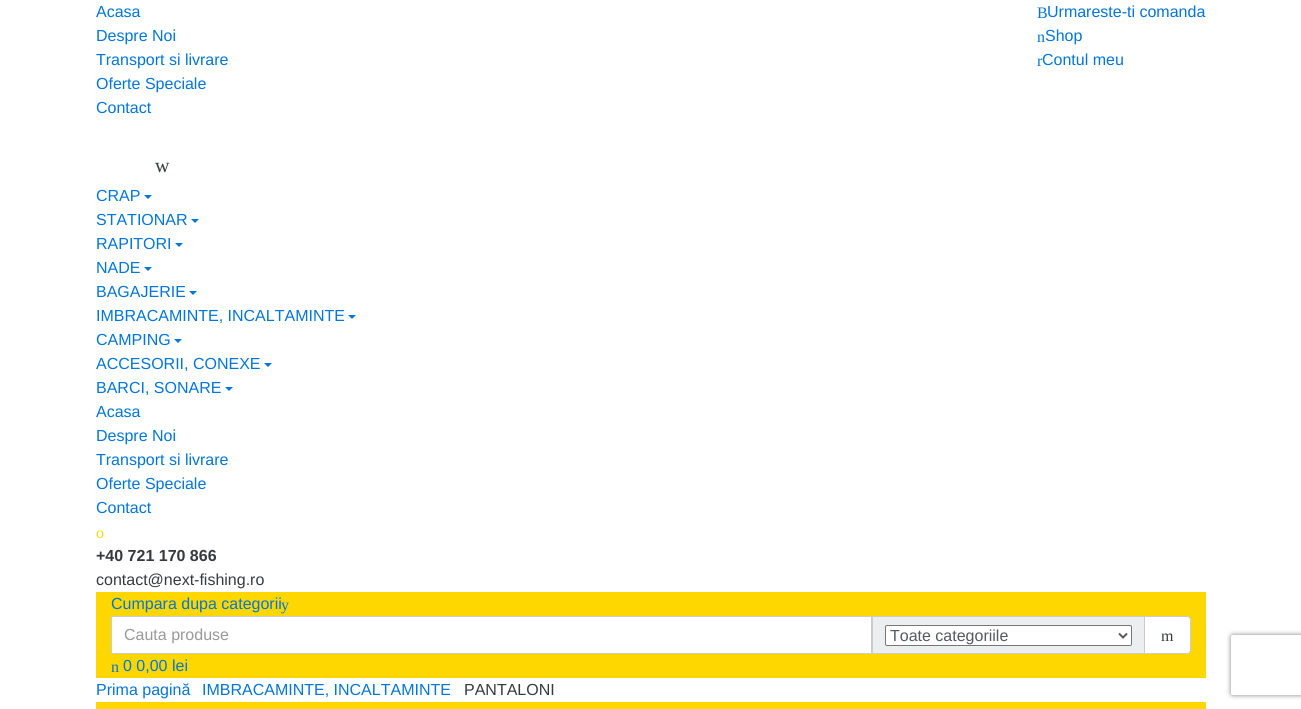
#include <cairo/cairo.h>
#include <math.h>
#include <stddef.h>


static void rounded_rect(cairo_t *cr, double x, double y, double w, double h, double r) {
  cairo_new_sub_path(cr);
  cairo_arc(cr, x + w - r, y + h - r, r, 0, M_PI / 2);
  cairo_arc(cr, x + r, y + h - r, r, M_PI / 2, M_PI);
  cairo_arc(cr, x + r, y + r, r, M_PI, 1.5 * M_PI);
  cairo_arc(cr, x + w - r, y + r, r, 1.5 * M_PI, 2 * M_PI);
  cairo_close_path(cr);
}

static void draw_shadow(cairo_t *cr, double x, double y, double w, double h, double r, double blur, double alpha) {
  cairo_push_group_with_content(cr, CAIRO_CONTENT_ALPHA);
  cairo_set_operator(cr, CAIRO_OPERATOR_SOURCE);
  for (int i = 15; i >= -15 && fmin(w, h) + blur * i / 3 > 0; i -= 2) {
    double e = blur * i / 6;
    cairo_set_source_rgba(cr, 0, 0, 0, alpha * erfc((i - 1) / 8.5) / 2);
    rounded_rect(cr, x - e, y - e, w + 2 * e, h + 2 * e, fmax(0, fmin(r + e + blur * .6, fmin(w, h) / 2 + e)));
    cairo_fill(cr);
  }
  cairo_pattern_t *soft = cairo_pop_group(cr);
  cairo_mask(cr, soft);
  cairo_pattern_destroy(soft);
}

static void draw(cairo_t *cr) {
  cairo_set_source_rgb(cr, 1, 1, 1);
  cairo_paint(cr);
  cairo_set_source_rgb(cr, 2 / 255.0, 117 / 255.0, 216 / 255.0);
  cairo_new_path(cr);
  cairo_move_to(cr, 144, 195);
  cairo_line_to(cr, 152, 195);
  cairo_line_to(cr, 148, 199);
  cairo_close_path(cr);
  cairo_fill(cr);
  cairo_new_path(cr);
  cairo_move_to(cr, 191, 219);
  cairo_line_to(cr, 199, 219);
  cairo_line_to(cr, 195, 223);
  cairo_close_path(cr);
  cairo_fill(cr);
  cairo_new_path(cr);
  cairo_move_to(cr, 175, 243);
  cairo_line_to(cr, 183, 243);
  cairo_line_to(cr, 179, 247);
  cairo_close_path(cr);
  cairo_fill(cr);
  cairo_new_path(cr);
  cairo_move_to(cr, 144, 267);
  cairo_line_to(cr, 152, 267);
  cairo_line_to(cr, 148, 271);
  cairo_close_path(cr);
  cairo_fill(cr);
  cairo_new_path(cr);
  cairo_move_to(cr, 189, 291);
  cairo_line_to(cr, 197, 291);
  cairo_line_to(cr, 193, 295);
  cairo_close_path(cr);
  cairo_fill(cr);
  cairo_new_path(cr);
  cairo_move_to(cr, 348, 315);
  cairo_line_to(cr, 356, 315);
  cairo_line_to(cr, 352, 319);
  cairo_close_path(cr);
  cairo_fill(cr);
  cairo_new_path(cr);
  cairo_move_to(cr, 174, 339);
  cairo_line_to(cr, 182, 339);
  cairo_line_to(cr, 178, 343);
  cairo_close_path(cr);
  cairo_fill(cr);
  cairo_new_path(cr);
  cairo_move_to(cr, 264, 363);
  cairo_line_to(cr, 272, 363);
  cairo_line_to(cr, 268, 367);
  cairo_close_path(cr);
  cairo_fill(cr);
  cairo_new_path(cr);
  cairo_move_to(cr, 225, 387);
  cairo_line_to(cr, 233, 387);
  cairo_line_to(cr, 229, 391);
  cairo_close_path(cr);
  cairo_fill(cr);
  cairo_set_source_rgb(cr, 254 / 255.0, 215 / 255.0, 0);
  cairo_rectangle(cr, 96, 592, 1110, 86);
  cairo_fill(cr);
  cairo_set_source_rgb(cr, 1, 1, 1);
  cairo_rectangle(cr, 111.5, 616.5, 760, 37);
  cairo_fill_preserve(cr);
  cairo_set_source_rgb(cr, 204 / 255.0, 204 / 255.0, 204 / 255.0);
  cairo_set_line_width(cr, 1);
  cairo_stroke(cr);
  cairo_set_source_rgb(cr, 236 / 255.0, 238 / 255.0, 239 / 255.0);
  cairo_rectangle(cr, 872.5, 616.5, 272, 37);
  cairo_fill_preserve(cr);
  cairo_set_source_rgb(cr, 204 / 255.0, 204 / 255.0, 204 / 255.0);
  cairo_stroke(cr);
  cairo_set_source_rgb(cr, 1, 1, 1);
  rounded_rect(cr, 885.5, 625.5, 246, 20, 1.5);
  cairo_fill_preserve(cr);
  cairo_set_source_rgb(cr, 118 / 255.0, 118 / 255.0, 118 / 255.0);
  cairo_stroke(cr);
  cairo_new_path(cr);
  cairo_move_to(cr, 1119, 633.5);
  cairo_line_to(cr, 1123, 637.5);
  cairo_line_to(cr, 1127, 633.5);
  cairo_set_source_rgb(cr, 85 / 255.0, 89 / 255.0, 92 / 255.0);
  cairo_set_line_width(cr, 2);
  cairo_stroke(cr);
  cairo_set_source_rgb(cr, 1, 1, 1);
  cairo_new_path(cr);
  cairo_move_to(cr, 1144.5, 616.5);
  cairo_line_to(cr, 1187, 616.5);
  cairo_curve_to(cr, 1189, 616.5, 1190.5, 618, 1190.5, 620);
  cairo_line_to(cr, 1190.5, 650);
  cairo_curve_to(cr, 1190.5, 652, 1189, 653.5, 1187, 653.5);
  cairo_line_to(cr, 1144.5, 653.5);
  cairo_close_path(cr);
  cairo_fill_preserve(cr);
  cairo_set_source_rgb(cr, 204 / 255.0, 204 / 255.0, 204 / 255.0);
  cairo_set_line_width(cr, 1);
  cairo_stroke(cr);
  cairo_set_source_rgb(cr, 254 / 255.0, 215 / 255.0, 0);
  cairo_rectangle(cr, 96, 702, 1110, 7);
  cairo_fill(cr);
  cairo_save(cr);
  cairo_set_fill_rule(cr, CAIRO_FILL_RULE_EVEN_ODD);
  cairo_new_path(cr);
  cairo_move_to(cr, 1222, 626);
  cairo_line_to(cr, 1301, 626);
  cairo_line_to(cr, 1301, 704);
  cairo_line_to(cr, 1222, 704);
  cairo_close_path(cr);
  cairo_move_to(cr, 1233, 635);
  cairo_line_to(cr, 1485, 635);
  cairo_curve_to(cr, 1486, 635, 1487, 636, 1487, 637);
  cairo_line_to(cr, 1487, 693);
  cairo_curve_to(cr, 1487, 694, 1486, 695, 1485, 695);
  cairo_line_to(cr, 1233, 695);
  cairo_curve_to(cr, 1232, 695, 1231, 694, 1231, 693);
  cairo_line_to(cr, 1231, 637);
  cairo_curve_to(cr, 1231, 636, 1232, 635, 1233, 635);
  cairo_close_path(cr);
  cairo_clip(cr);
  cairo_set_source_rgb(cr, 128 / 255.0, 128 / 255.0, 128 / 255.0);
  draw_shadow(cr, 1231, 635, 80, 60, 2, 2.5, 1);
  cairo_restore(cr);
  cairo_select_font_face(cr, "Liberation Sans", CAIRO_FONT_SLANT_NORMAL, CAIRO_FONT_WEIGHT_NORMAL);
  cairo_set_font_size(cr, 16);
  cairo_set_source_rgb(cr, 2 / 255.0, 117 / 255.0, 216 / 255.0);
  cairo_move_to(cr, 96, 17);
  cairo_show_text(cr, "Acasa");
  cairo_move_to(cr, 96, 41);
  cairo_show_text(cr, "Despre Noi");
  cairo_move_to(cr, 96, 65);
  cairo_show_text(cr, "Transport si livrare");
  cairo_move_to(cr, 96, 89);
  cairo_show_text(cr, "Oferte Speciale");
  cairo_move_to(cr, 96, 113);
  cairo_show_text(cr, "Contact");
  cairo_select_font_face(cr, "Liberation Serif", CAIRO_FONT_SLANT_NORMAL, CAIRO_FONT_WEIGHT_NORMAL);
  cairo_move_to(cr, 1037, 18);
  cairo_show_text(cr, "B");
  cairo_select_font_face(cr, "Liberation Sans", CAIRO_FONT_SLANT_NORMAL, CAIRO_FONT_WEIGHT_NORMAL);
  cairo_move_to(cr, 1047, 17);
  cairo_show_text(cr, "Urmareste-ti comanda");
  cairo_select_font_face(cr, "Liberation Serif", CAIRO_FONT_SLANT_NORMAL, CAIRO_FONT_WEIGHT_NORMAL);
  cairo_move_to(cr, 1037, 42);
  cairo_show_text(cr, "n");
  cairo_select_font_face(cr, "Liberation Sans", CAIRO_FONT_SLANT_NORMAL, CAIRO_FONT_WEIGHT_NORMAL);
  cairo_move_to(cr, 1045, 41);
  cairo_show_text(cr, "Shop");
  cairo_select_font_face(cr, "Liberation Serif", CAIRO_FONT_SLANT_NORMAL, CAIRO_FONT_WEIGHT_NORMAL);
  cairo_move_to(cr, 1037, 66);
  cairo_show_text(cr, "r");
  cairo_select_font_face(cr, "Liberation Sans", CAIRO_FONT_SLANT_NORMAL, CAIRO_FONT_WEIGHT_NORMAL);
  cairo_move_to(cr, 1042, 65);
  cairo_show_text(cr, "Contul meu");
  cairo_select_font_face(cr, "Liberation Serif", CAIRO_FONT_SLANT_NORMAL, CAIRO_FONT_WEIGHT_NORMAL);
  cairo_set_font_size(cr, 20);
  cairo_set_source_rgb(cr, 55 / 255.0, 58 / 255.0, 60 / 255.0);
  cairo_move_to(cr, 155, 172);
  cairo_show_text(cr, "w");
  cairo_select_font_face(cr, "Liberation Sans", CAIRO_FONT_SLANT_NORMAL, CAIRO_FONT_WEIGHT_NORMAL);
  cairo_set_font_size(cr, 16);
  cairo_set_source_rgb(cr, 2 / 255.0, 117 / 255.0, 216 / 255.0);
  cairo_move_to(cr, 96, 201);
  cairo_show_text(cr, "CRAP");
  cairo_move_to(cr, 96, 225);
  cairo_show_text(cr, "STATIONAR");
  cairo_move_to(cr, 96, 249);
  cairo_show_text(cr, "RAPITORI");
  cairo_move_to(cr, 96, 273);
  cairo_show_text(cr, "NADE");
  cairo_move_to(cr, 96, 297);
  cairo_show_text(cr, "BAGAJERIE");
  cairo_move_to(cr, 96, 321);
  cairo_show_text(cr, "IMBRACAMINTE, INCALTAMINTE");
  cairo_move_to(cr, 96, 345);
  cairo_show_text(cr, "CAMPING");
  cairo_move_to(cr, 96, 369);
  cairo_show_text(cr, "ACCESORII, CONEXE");
  cairo_move_to(cr, 96, 393);
  cairo_show_text(cr, "BARCI, SONARE");
  cairo_move_to(cr, 96, 417);
  cairo_show_text(cr, "Acasa");
  cairo_move_to(cr, 96, 441);
  cairo_show_text(cr, "Despre Noi");
  cairo_move_to(cr, 96, 465);
  cairo_show_text(cr, "Transport si livrare");
  cairo_move_to(cr, 96, 489);
  cairo_show_text(cr, "Oferte Speciale");
  cairo_move_to(cr, 96, 513);
  cairo_show_text(cr, "Contact");
  cairo_select_font_face(cr, "Liberation Serif", CAIRO_FONT_SLANT_NORMAL, CAIRO_FONT_WEIGHT_NORMAL);
  cairo_set_source_rgb(cr, 254 / 255.0, 215 / 255.0, 0);
  cairo_move_to(cr, 96, 538);
  cairo_show_text(cr, "o");
  cairo_select_font_face(cr, "Liberation Sans", CAIRO_FONT_SLANT_NORMAL, CAIRO_FONT_WEIGHT_BOLD);
  cairo_set_source_rgb(cr, 55 / 255.0, 58 / 255.0, 60 / 255.0);
  cairo_move_to(cr, 96, 561);
  cairo_show_text(cr, "+40 721 170 866");
  cairo_select_font_face(cr, "Liberation Sans", CAIRO_FONT_SLANT_NORMAL, CAIRO_FONT_WEIGHT_NORMAL);
  cairo_move_to(cr, 96, 585);
  cairo_show_text(cr, "contact@next-fishing.ro");
  cairo_set_source_rgb(cr, 2 / 255.0, 117 / 255.0, 216 / 255.0);
  cairo_move_to(cr, 111, 609);
  cairo_show_text(cr, "Cumpara dupa categorii");
  cairo_select_font_face(cr, "Liberation Serif", CAIRO_FONT_SLANT_NORMAL, CAIRO_FONT_WEIGHT_NORMAL);
  cairo_move_to(cr, 281, 610);
  cairo_show_text(cr, "y");
  cairo_select_font_face(cr, "Liberation Sans", CAIRO_FONT_SLANT_NORMAL, CAIRO_FONT_WEIGHT_NORMAL);
  cairo_set_source_rgb(cr, 153 / 255.0, 153 / 255.0, 153 / 255.0);
  cairo_move_to(cr, 124, 640);
  cairo_show_text(cr, "Cauta produse");
  cairo_set_source_rgb(cr, 85 / 255.0, 89 / 255.0, 92 / 255.0);
  cairo_move_to(cr, 890, 641);
  cairo_show_text(cr, "Toate categoriile");
  cairo_select_font_face(cr, "Liberation Serif", CAIRO_FONT_SLANT_NORMAL, CAIRO_FONT_WEIGHT_NORMAL);
  cairo_set_source_rgb(cr, 55 / 255.0, 58 / 255.0, 60 / 255.0);
  cairo_move_to(cr, 1161, 641);
  cairo_show_text(cr, "m");
  cairo_set_source_rgb(cr, 2 / 255.0, 117 / 255.0, 216 / 255.0);
  cairo_move_to(cr, 111, 672);
  cairo_show_text(cr, "n");
  cairo_select_font_face(cr, "Liberation Sans", CAIRO_FONT_SLANT_NORMAL, CAIRO_FONT_WEIGHT_NORMAL);
  cairo_move_to(cr, 123, 671);
  cairo_show_text(cr, "0 0,00 lei");
  cairo_move_to(cr, 96, 695);
  cairo_show_text(cr, "Prima pagină");
  cairo_move_to(cr, 202, 695);
  cairo_show_text(cr, "IMBRACAMINTE, INCALTAMINTE");
  cairo_set_source_rgb(cr, 55 / 255.0, 58 / 255.0, 60 / 255.0);
  cairo_move_to(cr, 464, 695);
  cairo_show_text(cr, "PANTALONI");
}

int main(void) {
  cairo_surface_t *surface = cairo_image_surface_create(CAIRO_FORMAT_RGB24, 1301, 709);
  cairo_t *cr = cairo_create(surface);
  cairo_font_options_t *options = cairo_font_options_create();
  cairo_font_options_set_hint_metrics(options, CAIRO_HINT_METRICS_OFF);
  cairo_font_options_set_hint_style(options, CAIRO_HINT_STYLE_NONE);
  cairo_set_font_options(cr, options);
  cairo_set_miter_limit(cr, 4);
  draw(cr);
  cairo_surface_write_to_png(surface, "out.png");
  cairo_font_options_destroy(options);
  cairo_destroy(cr);
  cairo_surface_destroy(surface);
  return 0;
}
